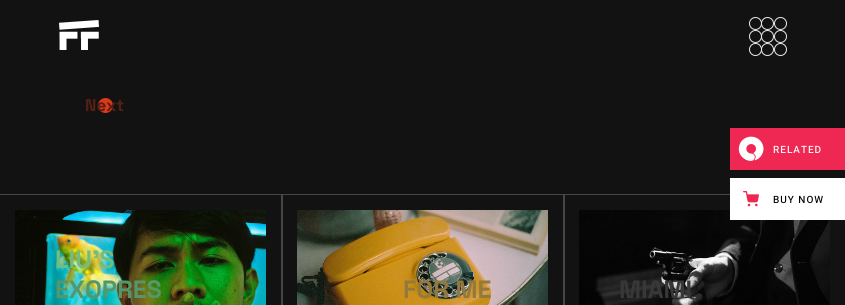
#include <cairo/cairo.h>
#include <math.h>
#include <stddef.h>


static void draw_spaced(cairo_t *cr, double x, double y, const char *s, double letter, double word) {
  cairo_move_to(cr, x, y);
  while (*s) {
    char ch[5] = {0};
    int n = 0;
    do ch[n++] = *s++; while ((*s & 0xC0) == 0x80);
    cairo_show_text(cr, ch);
    cairo_rel_move_to(cr, letter + word * (*ch == ' '), 0);
  }
}

static void draw_image(cairo_t *cr, const char *path, double x, double y, double w, double h) {
  cairo_surface_t *image = cairo_image_surface_create_from_png(path);
  cairo_save(cr);
  cairo_set_source_surface(cr, image, x, y);
  cairo_rectangle(cr, x, y, w, h);
  cairo_fill(cr);
  cairo_restore(cr);
  cairo_surface_destroy(image);
}

static void draw(cairo_t *cr) {
  cairo_set_source_rgb(cr, 18 / 255.0, 18 / 255.0, 18 / 255.0);
  cairo_paint(cr);
  draw_image(cr, "images/1.png", 59, 20, 40, 30);
  cairo_arc(cr, 755.5, 23.5, 6, 0, 2 * M_PI);
  cairo_set_source_rgb(cr, 235 / 255.0, 234 / 255.0, 233 / 255.0);
  cairo_set_line_width(cr, 1);
  cairo_stroke(cr);
  cairo_arc(cr, 767.5, 23.5, 6, 0, 2 * M_PI);
  cairo_stroke(cr);
  cairo_arc(cr, 780.5, 23.5, 6, 0, 2 * M_PI);
  cairo_stroke(cr);
  cairo_arc(cr, 755.5, 36.5, 6, 0, 2 * M_PI);
  cairo_stroke(cr);
  cairo_arc(cr, 767.5, 36.5, 6, 0, 2 * M_PI);
  cairo_stroke(cr);
  cairo_arc(cr, 780.5, 36.5, 6, 0, 2 * M_PI);
  cairo_stroke(cr);
  cairo_arc(cr, 755.5, 49.5, 6, 0, 2 * M_PI);
  cairo_stroke(cr);
  cairo_arc(cr, 767.5, 49.5, 6, 0, 2 * M_PI);
  cairo_stroke(cr);
  cairo_arc(cr, 780.5, 49.5, 6, 0, 2 * M_PI);
  cairo_stroke(cr);
  cairo_set_source_rgb(cr, 220 / 255.0, 57 / 255.0, 24 / 255.0);
  cairo_arc(cr, 105.5, 105.5, 7.5, 0, 2 * M_PI);
  cairo_fill(cr);
  cairo_rectangle(cr, -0.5, 194.5, 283, 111);
  cairo_set_source_rgb(cr, 71 / 255.0, 70 / 255.0, 70 / 255.0);
  cairo_stroke(cr);
  draw_image(cr, "images/2.png", 15, 210, 251, 95);
  cairo_rectangle(cr, 281.5, 194.5, 283, 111);
  cairo_stroke(cr);
  draw_image(cr, "images/3.png", 297, 210, 251, 95);
  cairo_rectangle(cr, 563.5, 194.5, 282, 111);
  cairo_stroke(cr);
  draw_image(cr, "images/4.png", 579, 210, 251, 95);
  cairo_set_source_rgb(cr, 239 / 255.0, 40 / 255.0, 83 / 255.0);
  cairo_rectangle(cr, 730, 128, 115, 42);
  cairo_fill(cr);
  draw_image(cr, "images/5.png", 738, 136, 26, 25);
  cairo_set_source_rgb(cr, 1, 1, 1);
  cairo_rectangle(cr, 730, 178, 115, 42);
  cairo_fill(cr);
  draw_image(cr, "images/6.png", 743, 191, 16, 16);
  cairo_select_font_face(cr, "Space Grotesk", CAIRO_FONT_SLANT_NORMAL, CAIRO_FONT_WEIGHT_BOLD);
  cairo_set_font_size(cr, 17);
  cairo_set_source_rgb(cr, 87 / 255.0, 31 / 255.0, 20 / 255.0);
  cairo_move_to(cr, 85, 111);
  cairo_show_text(cr, "Next");
  cairo_set_font_size(cr, 25);
  cairo_set_source_rgb(cr, 116 / 255.0, 188 / 255.0, 123 / 255.0);
  cairo_move_to(cr, 55, 268);
  cairo_show_text(cr, "LIU’S");
  cairo_set_source_rgb(cr, 86 / 255.0, 151 / 255.0, 106 / 255.0);
  cairo_move_to(cr, 55, 298);
  cairo_show_text(cr, "EXOPRES");
  cairo_set_source_rgb(cr, 148 / 255.0, 121 / 255.0, 60 / 255.0);
  cairo_move_to(cr, 403, 298);
  cairo_show_text(cr, "FOR ME");
  cairo_set_source_rgb(cr, 56 / 255.0, 56 / 255.0, 56 / 255.0);
  cairo_move_to(cr, 619, 298);
  cairo_show_text(cr, "MIAMI");
  cairo_select_font_face(cr, "Heebo Medium", CAIRO_FONT_SLANT_NORMAL, CAIRO_FONT_WEIGHT_NORMAL);
  cairo_set_font_size(cr, 10);
  cairo_set_source_rgb(cr, 1, 1, 1);
  draw_spaced(cr, 773, 153, "RELATED", 1, 0);
  cairo_set_source_rgb(cr, 0, 0, 0);
  draw_spaced(cr, 773, 203, "BUY NOW", 1, 0);
}

int main(void) {
  cairo_surface_t *surface = cairo_image_surface_create(CAIRO_FORMAT_RGB24, 845, 305);
  cairo_t *cr = cairo_create(surface);
  cairo_font_options_t *options = cairo_font_options_create();
  cairo_font_options_set_hint_metrics(options, CAIRO_HINT_METRICS_OFF);
  cairo_font_options_set_hint_style(options, CAIRO_HINT_STYLE_NONE);
  cairo_set_font_options(cr, options);
  cairo_set_miter_limit(cr, 4);
  draw(cr);
  cairo_surface_write_to_png(surface, "out.png");
  cairo_font_options_destroy(options);
  cairo_destroy(cr);
  cairo_surface_destroy(surface);
  return 0;
}
